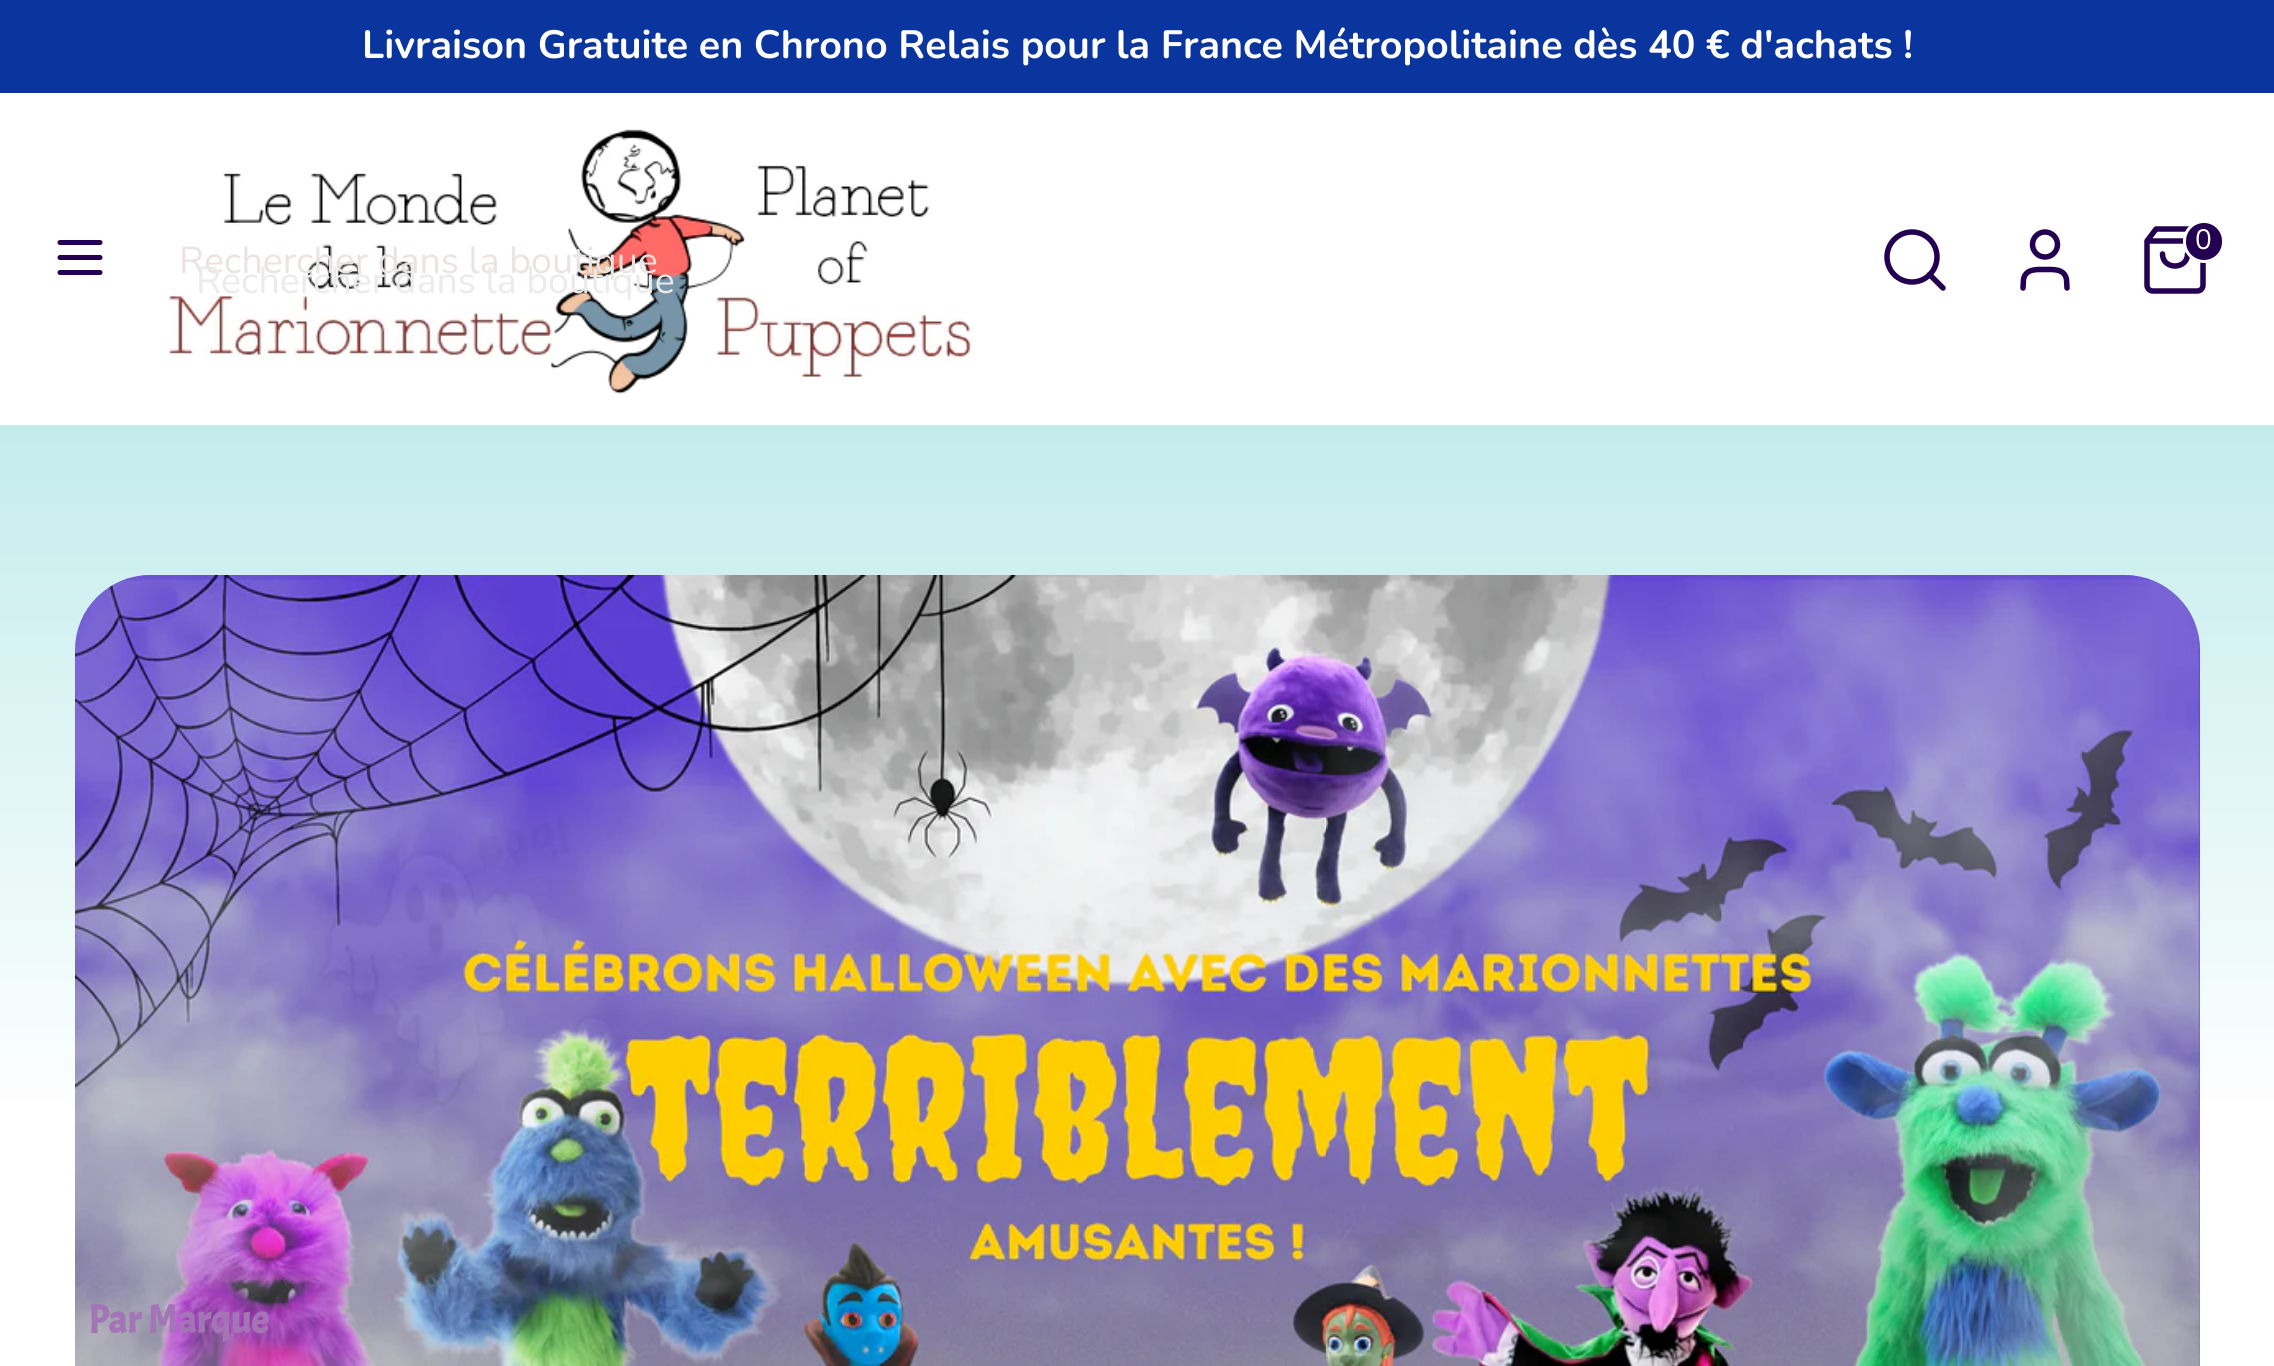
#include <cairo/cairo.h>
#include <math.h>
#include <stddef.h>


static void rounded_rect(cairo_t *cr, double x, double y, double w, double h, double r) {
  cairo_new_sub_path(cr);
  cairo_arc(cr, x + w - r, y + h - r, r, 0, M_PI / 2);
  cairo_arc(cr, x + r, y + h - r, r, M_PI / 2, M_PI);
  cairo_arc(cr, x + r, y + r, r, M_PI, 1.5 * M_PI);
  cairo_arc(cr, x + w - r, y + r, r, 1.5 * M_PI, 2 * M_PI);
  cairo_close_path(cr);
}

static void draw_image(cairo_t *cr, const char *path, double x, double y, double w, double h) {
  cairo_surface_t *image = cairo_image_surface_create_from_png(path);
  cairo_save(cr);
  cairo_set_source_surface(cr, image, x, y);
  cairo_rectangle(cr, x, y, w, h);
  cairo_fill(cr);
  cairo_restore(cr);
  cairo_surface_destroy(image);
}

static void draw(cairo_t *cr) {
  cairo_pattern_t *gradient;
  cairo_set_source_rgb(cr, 1, 1, 1);
  cairo_paint(cr);
  cairo_set_source_rgb(cr, 11 / 255.0, 53 / 255.0, 158 / 255.0);
  cairo_rectangle(cr, 0, 0, 2274, 93);
  cairo_fill(cr);
  draw_image(cr, "images/1.png", 169, 129, 805, 265);
  cairo_new_path(cr);
  cairo_move_to(cr, 60, 257.5);
  cairo_line_to(cr, 100, 257.5);
  cairo_move_to(cr, 60, 242.5);
  cairo_line_to(cr, 100, 242.5);
  cairo_move_to(cr, 60, 272.5);
  cairo_line_to(cr, 100, 272.5);
  cairo_set_source_rgb(cr, 35 / 255.0, 0, 81 / 255.0);
  cairo_set_line_width(cr, 5);
  cairo_set_line_cap(cr, CAIRO_LINE_CAP_ROUND);
  cairo_set_line_join(cr, CAIRO_LINE_JOIN_ROUND);
  cairo_stroke(cr);
  cairo_arc(cr, 1912, 257, 25, 0, 2 * M_PI);
  cairo_set_line_width(cr, 5.5);
  cairo_set_line_cap(cr, CAIRO_LINE_CAP_BUTT);
  cairo_set_line_join(cr, CAIRO_LINE_JOIN_MITER);
  cairo_stroke(cr);
  cairo_new_path(cr);
  cairo_move_to(cr, 1943, 288);
  cairo_line_to(cr, 1929.5, 274.5);
  cairo_set_line_cap(cr, CAIRO_LINE_CAP_ROUND);
  cairo_set_line_join(cr, CAIRO_LINE_JOIN_ROUND);
  cairo_stroke(cr);
  cairo_new_path(cr);
  cairo_move_to(cr, 2067, 288);
  cairo_line_to(cr, 2066.5, 279.5);
  cairo_curve_to(cr, 2064.5, 268.5, 2053.5, 269.5, 2045, 269.5);
  cairo_curve_to(cr, 2036.5, 269.5, 2025.5, 268.5, 2023.5, 279.5);
  cairo_line_to(cr, 2023, 288);
  cairo_stroke(cr);
  cairo_arc(cr, 2045, 244.5, 12.5, 0, 2 * M_PI);
  cairo_set_line_cap(cr, CAIRO_LINE_CAP_BUTT);
  cairo_set_line_join(cr, CAIRO_LINE_JOIN_MITER);
  cairo_stroke(cr);
  cairo_new_path(cr);
  cairo_move_to(cr, 2156, 229);
  cairo_line_to(cr, 2147, 241);
  cairo_line_to(cr, 2147, 285);
  cairo_curve_to(cr, 2147, 288.5, 2149.5, 291, 2153, 291);
  cairo_line_to(cr, 2197, 291);
  cairo_curve_to(cr, 2200.5, 291, 2203, 288.5, 2203, 285);
  cairo_line_to(cr, 2203, 241);
  cairo_line_to(cr, 2194, 229);
  cairo_close_path(cr);
  cairo_move_to(cr, 2147, 241);
  cairo_line_to(cr, 2203, 241);
  cairo_set_line_cap(cr, CAIRO_LINE_CAP_ROUND);
  cairo_set_line_join(cr, CAIRO_LINE_JOIN_ROUND);
  cairo_stroke(cr);
  cairo_new_path(cr);
  cairo_move_to(cr, 2187.5, 254);
  cairo_curve_to(cr, 2187.5, 270, 2162.5, 270, 2162.5, 254);
  cairo_stroke(cr);
  rounded_rect(cr, 2184.5, 221.5, 39, 40, 19.5);
  cairo_fill_preserve(cr);
  cairo_set_source_rgb(cr, 1, 1, 1);
  cairo_set_line_width(cr, 3);
  cairo_set_line_cap(cr, CAIRO_LINE_CAP_BUTT);
  cairo_set_line_join(cr, CAIRO_LINE_JOIN_MITER);
  cairo_stroke(cr);
  gradient = cairo_pattern_create_linear(1138, 425, 1138, 1143);
  cairo_pattern_add_color_stop_rgba(gradient, 0, 196 / 255.0, 236 / 255.0, 236 / 255.0, 1);
  cairo_pattern_add_color_stop_rgba(gradient, 0.98, 1, 1, 1, 1);
  cairo_set_source(cr, gradient);
  cairo_pattern_destroy(gradient);
  cairo_rectangle(cr, 0, 425, 2274, 674);
  cairo_fill(cr);
  draw_image(cr, "images/2.png", 75, 575, 2125, 791);
  cairo_select_font_face(cr, "Nunito", CAIRO_FONT_SLANT_NORMAL, CAIRO_FONT_WEIGHT_BOLD);
  cairo_set_font_size(cr, 39.4);
  cairo_set_source_rgb(cr, 1, 1, 1);
  cairo_move_to(cr, 362, 58);
  cairo_show_text(cr, "Livraison Gratuite en Chrono Relais pour la France Métropolitaine dès 40 € d'achats !");
  cairo_select_font_face(cr, "Nunito", CAIRO_FONT_SLANT_NORMAL, CAIRO_FONT_WEIGHT_NORMAL);
  cairo_set_font_size(cr, 28);
  cairo_move_to(cr, 2195, 249);
  cairo_show_text(cr, "0");
  cairo_set_font_size(cr, 37.5);
  cairo_set_source_rgb(cr, 235 / 255.0, 227 / 255.0, 226 / 255.0);
  cairo_move_to(cr, 179, 273);
  cairo_show_text(cr, "Rechercher dans la boutique");
  cairo_set_source_rgb(cr, 235 / 255.0, 235 / 255.0, 235 / 255.0);
  cairo_move_to(cr, 196, 293);
  cairo_show_text(cr, "Rechercher dans la boutique");
  cairo_select_font_face(cr, "Acme", CAIRO_FONT_SLANT_NORMAL, CAIRO_FONT_WEIGHT_BOLD);
  cairo_set_font_size(cr, 40);
  cairo_set_source_rgb(cr, 164 / 255.0, 117 / 255.0, 182 / 255.0);
  cairo_move_to(cr, 88, 1333);
  cairo_show_text(cr, "Par Marque");
}

int main(void) {
  cairo_surface_t *surface = cairo_image_surface_create(CAIRO_FORMAT_RGB24, 2274, 1366);
  cairo_t *cr = cairo_create(surface);
  cairo_font_options_t *options = cairo_font_options_create();
  cairo_font_options_set_hint_metrics(options, CAIRO_HINT_METRICS_OFF);
  cairo_font_options_set_hint_style(options, CAIRO_HINT_STYLE_NONE);
  cairo_set_font_options(cr, options);
  cairo_set_miter_limit(cr, 4);
  draw(cr);
  cairo_surface_write_to_png(surface, "out.png");
  cairo_font_options_destroy(options);
  cairo_destroy(cr);
  cairo_surface_destroy(surface);
  return 0;
}
